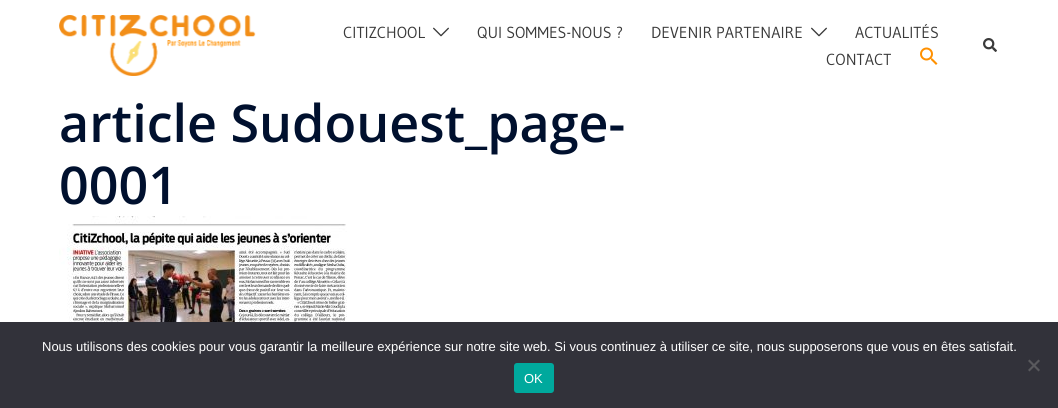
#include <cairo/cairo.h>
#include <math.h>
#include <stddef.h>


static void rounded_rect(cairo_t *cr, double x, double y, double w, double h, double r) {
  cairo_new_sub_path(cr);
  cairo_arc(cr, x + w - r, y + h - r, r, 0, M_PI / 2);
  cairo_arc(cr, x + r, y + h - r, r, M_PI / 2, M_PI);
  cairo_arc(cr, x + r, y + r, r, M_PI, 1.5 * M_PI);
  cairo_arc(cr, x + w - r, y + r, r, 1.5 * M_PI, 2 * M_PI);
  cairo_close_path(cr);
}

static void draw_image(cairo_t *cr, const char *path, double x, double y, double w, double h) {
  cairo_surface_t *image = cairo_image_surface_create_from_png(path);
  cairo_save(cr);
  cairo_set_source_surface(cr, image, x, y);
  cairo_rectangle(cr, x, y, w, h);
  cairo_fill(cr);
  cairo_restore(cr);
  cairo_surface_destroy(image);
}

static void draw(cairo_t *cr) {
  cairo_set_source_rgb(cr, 1, 1, 1);
  cairo_paint(cr);
  draw_image(cr, "images/1.png", 59, 15, 197, 61);
  draw_image(cr, "images/2.png", 433, 27, 16, 10);
  draw_image(cr, "images/2.png", 811, 27, 16, 10);
  draw_image(cr, "images/3.png", 920, 47, 18, 18);
  draw_image(cr, "images/4.png", 983, 38, 14, 14);
  draw_image(cr, "images/5.png", 59, 216, 288, 106);
  cairo_set_source_rgb(cr, 50 / 255.0, 50 / 255.0, 58 / 255.0);
  cairo_rectangle(cr, 0, 322, 1058, 86);
  cairo_fill(cr);
  cairo_set_source_rgb(cr, 89 / 255.0, 89 / 255.0, 93 / 255.0);
  cairo_new_path(cr);
  cairo_move_to(cr, 1038.5, 359.5);
  cairo_line_to(cr, 1040, 361);
  cairo_line_to(cr, 1029.5, 371.5);
  cairo_line_to(cr, 1028, 370);
  cairo_close_path(cr);
  cairo_fill(cr);
  cairo_new_path(cr);
  cairo_move_to(cr, 1028, 361);
  cairo_line_to(cr, 1029.5, 359.5);
  cairo_line_to(cr, 1040, 370);
  cairo_line_to(cr, 1038.5, 371.5);
  cairo_close_path(cr);
  cairo_fill(cr);
  cairo_set_source_rgb(cr, 0, 169 / 255.0, 157 / 255.0);
  rounded_rect(cr, 514, 363, 40, 30, 3);
  cairo_fill(cr);
  cairo_select_font_face(cr, "Gudea", CAIRO_FONT_SLANT_NORMAL, CAIRO_FONT_WEIGHT_NORMAL);
  cairo_set_font_size(cr, 16);
  cairo_set_source_rgb(cr, 58 / 255.0, 58 / 255.0, 58 / 255.0);
  cairo_move_to(cr, 343, 38);
  cairo_show_text(cr, "CITIZCHOOL");
  cairo_move_to(cr, 477, 38);
  cairo_show_text(cr, "QUI SOMMES-NOUS ?");
  cairo_move_to(cr, 651, 38);
  cairo_show_text(cr, "DEVENIR PARTENAIRE");
  cairo_move_to(cr, 855, 38);
  cairo_show_text(cr, "ACTUALITÉS");
  cairo_move_to(cr, 826, 65);
  cairo_show_text(cr, "CONTACT");
  cairo_select_font_face(cr, "Open Sans SemiBold", CAIRO_FONT_SLANT_NORMAL, CAIRO_FONT_WEIGHT_NORMAL);
  cairo_set_font_size(cr, 52);
  cairo_set_source_rgb(cr, 0, 16 / 255.0, 46 / 255.0);
  cairo_move_to(cr, 59, 142);
  cairo_show_text(cr, "article Sudouest_page-");
  cairo_move_to(cr, 59, 204);
  cairo_show_text(cr, "0001");
  cairo_select_font_face(cr, "Liberation Sans", CAIRO_FONT_SLANT_NORMAL, CAIRO_FONT_WEIGHT_NORMAL);
  cairo_set_font_size(cr, 13);
  cairo_set_source_rgb(cr, 1, 1, 1);
  cairo_move_to(cr, 42, 351);
  cairo_show_text(cr, "Nous utilisons des cookies pour vous garantir la meilleure expérience sur notre site web. Si vous continuez à utiliser ce site, nous supposerons que vous en êtes satisfait.");
  cairo_move_to(cr, 524, 383);
  cairo_show_text(cr, "OK");
}

int main(void) {
  cairo_surface_t *surface = cairo_image_surface_create(CAIRO_FORMAT_RGB24, 1058, 408);
  cairo_t *cr = cairo_create(surface);
  cairo_font_options_t *options = cairo_font_options_create();
  cairo_font_options_set_hint_metrics(options, CAIRO_HINT_METRICS_OFF);
  cairo_font_options_set_hint_style(options, CAIRO_HINT_STYLE_NONE);
  cairo_set_font_options(cr, options);
  cairo_set_miter_limit(cr, 4);
  draw(cr);
  cairo_surface_write_to_png(surface, "out.png");
  cairo_font_options_destroy(options);
  cairo_destroy(cr);
  cairo_surface_destroy(surface);
  return 0;
}
